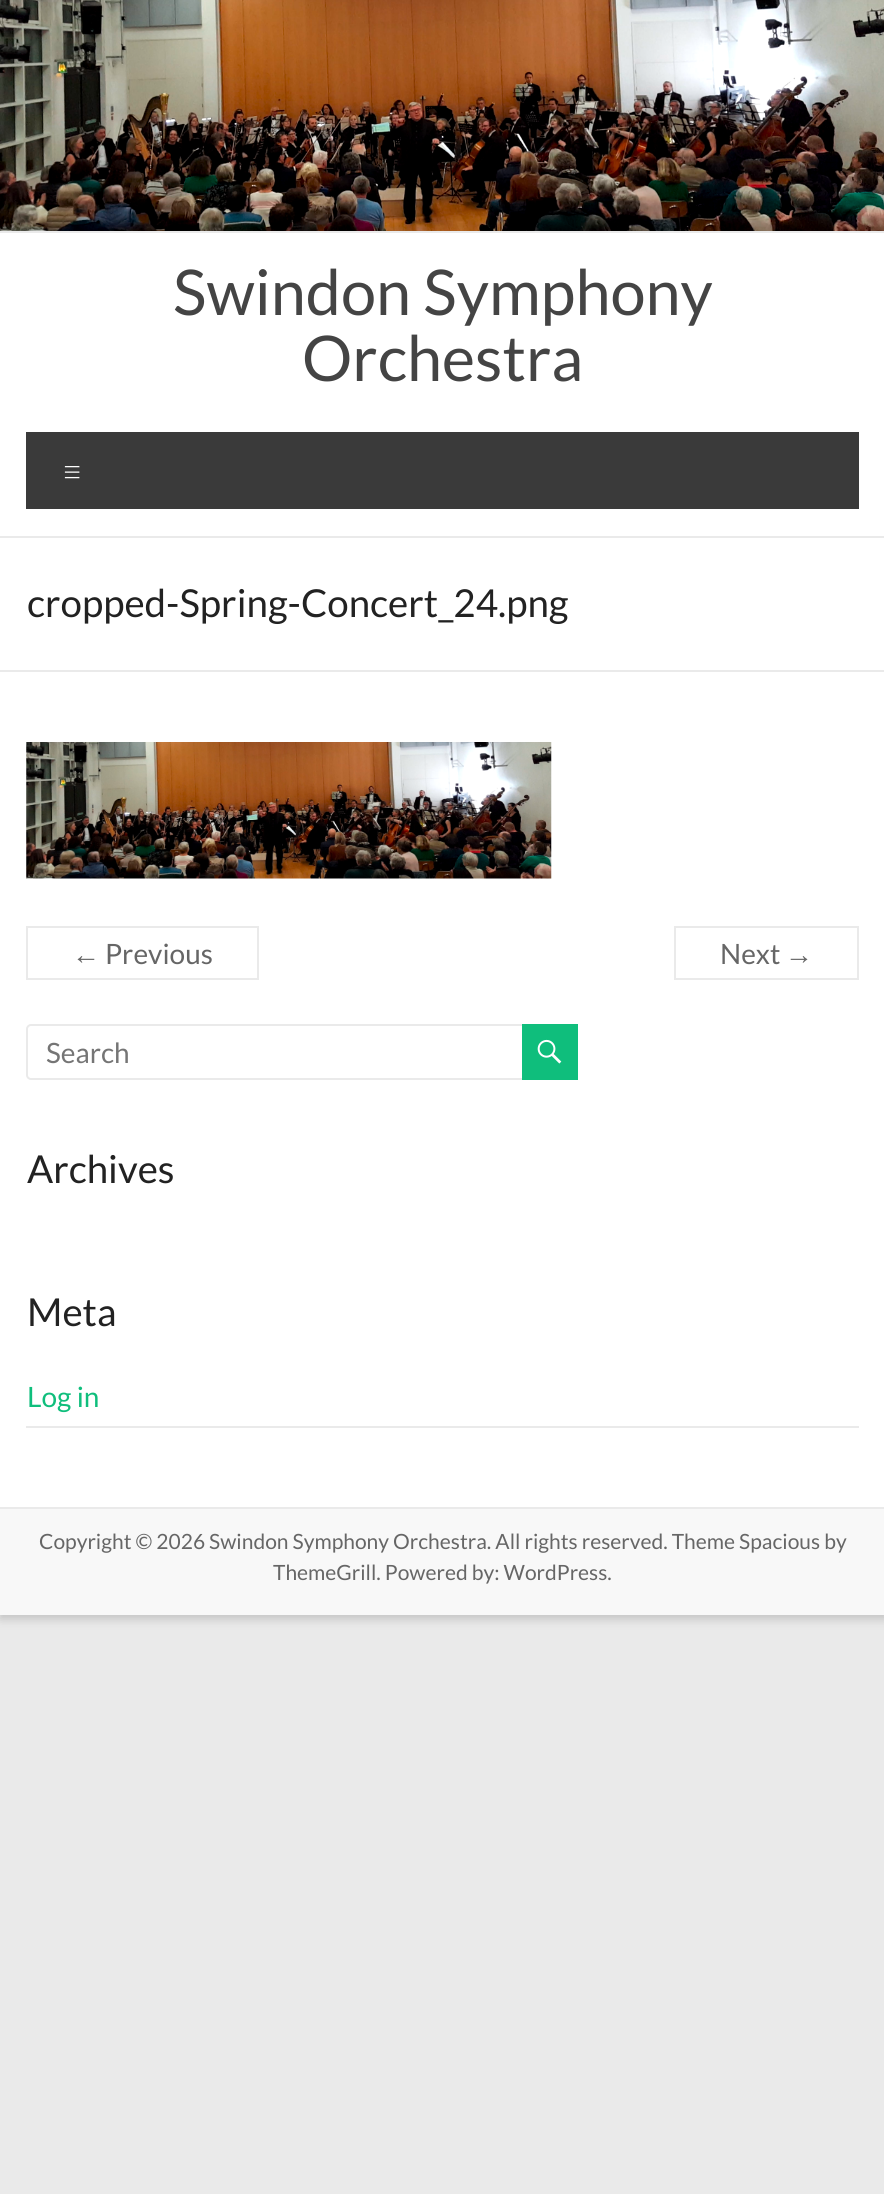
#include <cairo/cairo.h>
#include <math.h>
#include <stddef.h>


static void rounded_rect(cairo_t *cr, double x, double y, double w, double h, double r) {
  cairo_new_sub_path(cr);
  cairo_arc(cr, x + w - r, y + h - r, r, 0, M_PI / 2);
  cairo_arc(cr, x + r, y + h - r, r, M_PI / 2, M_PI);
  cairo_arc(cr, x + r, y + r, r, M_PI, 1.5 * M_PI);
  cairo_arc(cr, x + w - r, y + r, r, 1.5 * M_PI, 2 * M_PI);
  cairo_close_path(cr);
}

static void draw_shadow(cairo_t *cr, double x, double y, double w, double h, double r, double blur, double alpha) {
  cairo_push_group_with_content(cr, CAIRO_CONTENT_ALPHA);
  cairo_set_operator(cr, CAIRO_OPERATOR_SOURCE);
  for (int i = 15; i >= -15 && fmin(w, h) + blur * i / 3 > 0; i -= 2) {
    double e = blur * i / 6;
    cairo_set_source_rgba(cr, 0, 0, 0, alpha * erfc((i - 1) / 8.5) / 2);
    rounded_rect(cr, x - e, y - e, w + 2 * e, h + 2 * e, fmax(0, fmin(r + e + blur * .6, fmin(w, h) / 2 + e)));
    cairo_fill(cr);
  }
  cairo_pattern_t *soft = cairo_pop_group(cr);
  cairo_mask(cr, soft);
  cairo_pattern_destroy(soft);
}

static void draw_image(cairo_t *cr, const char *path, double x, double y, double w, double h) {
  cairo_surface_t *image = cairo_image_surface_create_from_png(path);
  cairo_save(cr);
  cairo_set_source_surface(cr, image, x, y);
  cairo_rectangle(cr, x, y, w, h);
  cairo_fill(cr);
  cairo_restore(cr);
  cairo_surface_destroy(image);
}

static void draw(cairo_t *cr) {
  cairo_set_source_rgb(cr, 234 / 255.0, 234 / 255.0, 234 / 255.0);
  cairo_paint(cr);
  cairo_set_source_rgb(cr, 100 / 255.0, 100 / 255.0, 100 / 255.0);
  draw_shadow(cr, 0, 4, 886, 1615, 0, 5, 0.3);
  cairo_set_source_rgb(cr, 1, 1, 1);
  cairo_rectangle(cr, 0, 233, 884, 1274);
  cairo_fill(cr);
  draw_image(cr, "images/1.png", 0, 0, 884, 231);
  cairo_set_source_rgb(cr, 234 / 255.0, 234 / 255.0, 234 / 255.0);
  cairo_rectangle(cr, 0, 231, 884, 2);
  cairo_fill(cr);
  cairo_rectangle(cr, 0, 536, 884, 2);
  cairo_fill(cr);
  cairo_set_source_rgb(cr, 58 / 255.0, 58 / 255.0, 58 / 255.0);
  cairo_rectangle(cr, 26, 432, 833, 77);
  cairo_fill(cr);
  cairo_set_source_rgb(cr, 234 / 255.0, 234 / 255.0, 234 / 255.0);
  cairo_rectangle(cr, 0, 670, 884, 2);
  cairo_fill(cr);
  draw_image(cr, "images/2.png", 26, 742, 526, 137);
  cairo_rectangle(cr, 27, 927, 231, 52);
  cairo_stroke(cr);
  cairo_rectangle(cr, 675, 927, 183, 52);
  cairo_stroke(cr);
  rounded_rect(cr, 27, 1025, 499, 54, 4);
  cairo_stroke(cr);
  cairo_set_source_rgb(cr, 15 / 255.0, 190 / 255.0, 124 / 255.0);
  cairo_rectangle(cr, 522, 1024, 56, 56);
  cairo_fill(cr);
  draw_image(cr, "images/3.png", 537, 1039, 25, 25);
  cairo_set_source_rgb(cr, 234 / 255.0, 234 / 255.0, 234 / 255.0);
  cairo_rectangle(cr, 26, 1426, 833, 2);
  cairo_fill(cr);
  cairo_set_source_rgb(cr, 248 / 255.0, 248 / 255.0, 248 / 255.0);
  cairo_rectangle(cr, 0, 1509, 884, 106);
  cairo_fill(cr);
  cairo_set_source_rgb(cr, 234 / 255.0, 234 / 255.0, 234 / 255.0);
  cairo_rectangle(cr, 0, 1507, 884, 2);
  cairo_fill(cr);
  cairo_select_font_face(cr, "Lato", CAIRO_FONT_SLANT_NORMAL, CAIRO_FONT_WEIGHT_NORMAL);
  cairo_set_font_size(cr, 63);
  cairo_set_source_rgb(cr, 68 / 255.0, 68 / 255.0, 68 / 255.0);
  cairo_move_to(cr, 173, 315);
  cairo_show_text(cr, "Swindon Symphony");
  cairo_move_to(cr, 302, 381);
  cairo_show_text(cr, "Orchestra");
  cairo_select_font_face(cr, "Lato Light", CAIRO_FONT_SLANT_NORMAL, CAIRO_FONT_WEIGHT_NORMAL);
  cairo_set_font_size(cr, 35);
  cairo_set_source_rgb(cr, 1, 1, 1);
  cairo_move_to(cr, 62, 484);
  cairo_show_text(cr, "≡");
  cairo_select_font_face(cr, "Lato", CAIRO_FONT_SLANT_NORMAL, CAIRO_FONT_WEIGHT_NORMAL);
  cairo_set_font_size(cr, 38.5);
  cairo_set_source_rgb(cr, 34 / 255.0, 34 / 255.0, 34 / 255.0);
  cairo_move_to(cr, 27, 617);
  cairo_show_text(cr, "cropped-Spring-Concert_24.png");
  cairo_select_font_face(cr, "Liberation Sans", CAIRO_FONT_SLANT_NORMAL, CAIRO_FONT_WEIGHT_NORMAL);
  cairo_set_font_size(cr, 28);
  cairo_set_source_rgb(cr, 102 / 255.0, 102 / 255.0, 102 / 255.0);
  cairo_move_to(cr, 72, 964);
  cairo_show_text(cr, "←");
  cairo_select_font_face(cr, "Lato", CAIRO_FONT_SLANT_NORMAL, CAIRO_FONT_WEIGHT_NORMAL);
  cairo_move_to(cr, 105, 964);
  cairo_show_text(cr, "Previous");
  cairo_move_to(cr, 720, 964);
  cairo_show_text(cr, "Next");
  cairo_select_font_face(cr, "Liberation Sans", CAIRO_FONT_SLANT_NORMAL, CAIRO_FONT_WEIGHT_NORMAL);
  cairo_move_to(cr, 785, 964);
  cairo_show_text(cr, "→");
  cairo_select_font_face(cr, "Lato", CAIRO_FONT_SLANT_NORMAL, CAIRO_FONT_WEIGHT_NORMAL);
  cairo_set_source_rgb(cr, 117 / 255.0, 117 / 255.0, 117 / 255.0);
  cairo_move_to(cr, 46, 1063);
  cairo_show_text(cr, "Search");
  cairo_set_font_size(cr, 38.5);
  cairo_set_source_rgb(cr, 34 / 255.0, 34 / 255.0, 34 / 255.0);
  cairo_move_to(cr, 27, 1183);
  cairo_show_text(cr, "Archives");
  cairo_move_to(cr, 27, 1326);
  cairo_show_text(cr, "Meta");
  cairo_set_font_size(cr, 28);
  cairo_set_source_rgb(cr, 15 / 255.0, 190 / 255.0, 124 / 255.0);
  cairo_move_to(cr, 27, 1407);
  cairo_show_text(cr, "Log in");
  cairo_set_font_size(cr, 21);
  cairo_set_source_rgb(cr, 102 / 255.0, 102 / 255.0, 102 / 255.0);
  cairo_move_to(cr, 39, 1549);
  cairo_show_text(cr, "Copyright © 2026 Swindon Symphony Orchestra. All rights reserved. Theme Spacious by");
  cairo_move_to(cr, 273, 1580);
  cairo_show_text(cr, "ThemeGrill. Powered by: WordPress.");
}

int main(void) {
  cairo_surface_t *surface = cairo_image_surface_create(CAIRO_FORMAT_RGB24, 884, 2194);
  cairo_t *cr = cairo_create(surface);
  cairo_font_options_t *options = cairo_font_options_create();
  cairo_font_options_set_hint_metrics(options, CAIRO_HINT_METRICS_OFF);
  cairo_font_options_set_hint_style(options, CAIRO_HINT_STYLE_NONE);
  cairo_set_font_options(cr, options);
  cairo_set_miter_limit(cr, 4);
  draw(cr);
  cairo_surface_write_to_png(surface, "out.png");
  cairo_font_options_destroy(options);
  cairo_destroy(cr);
  cairo_surface_destroy(surface);
  return 0;
}
